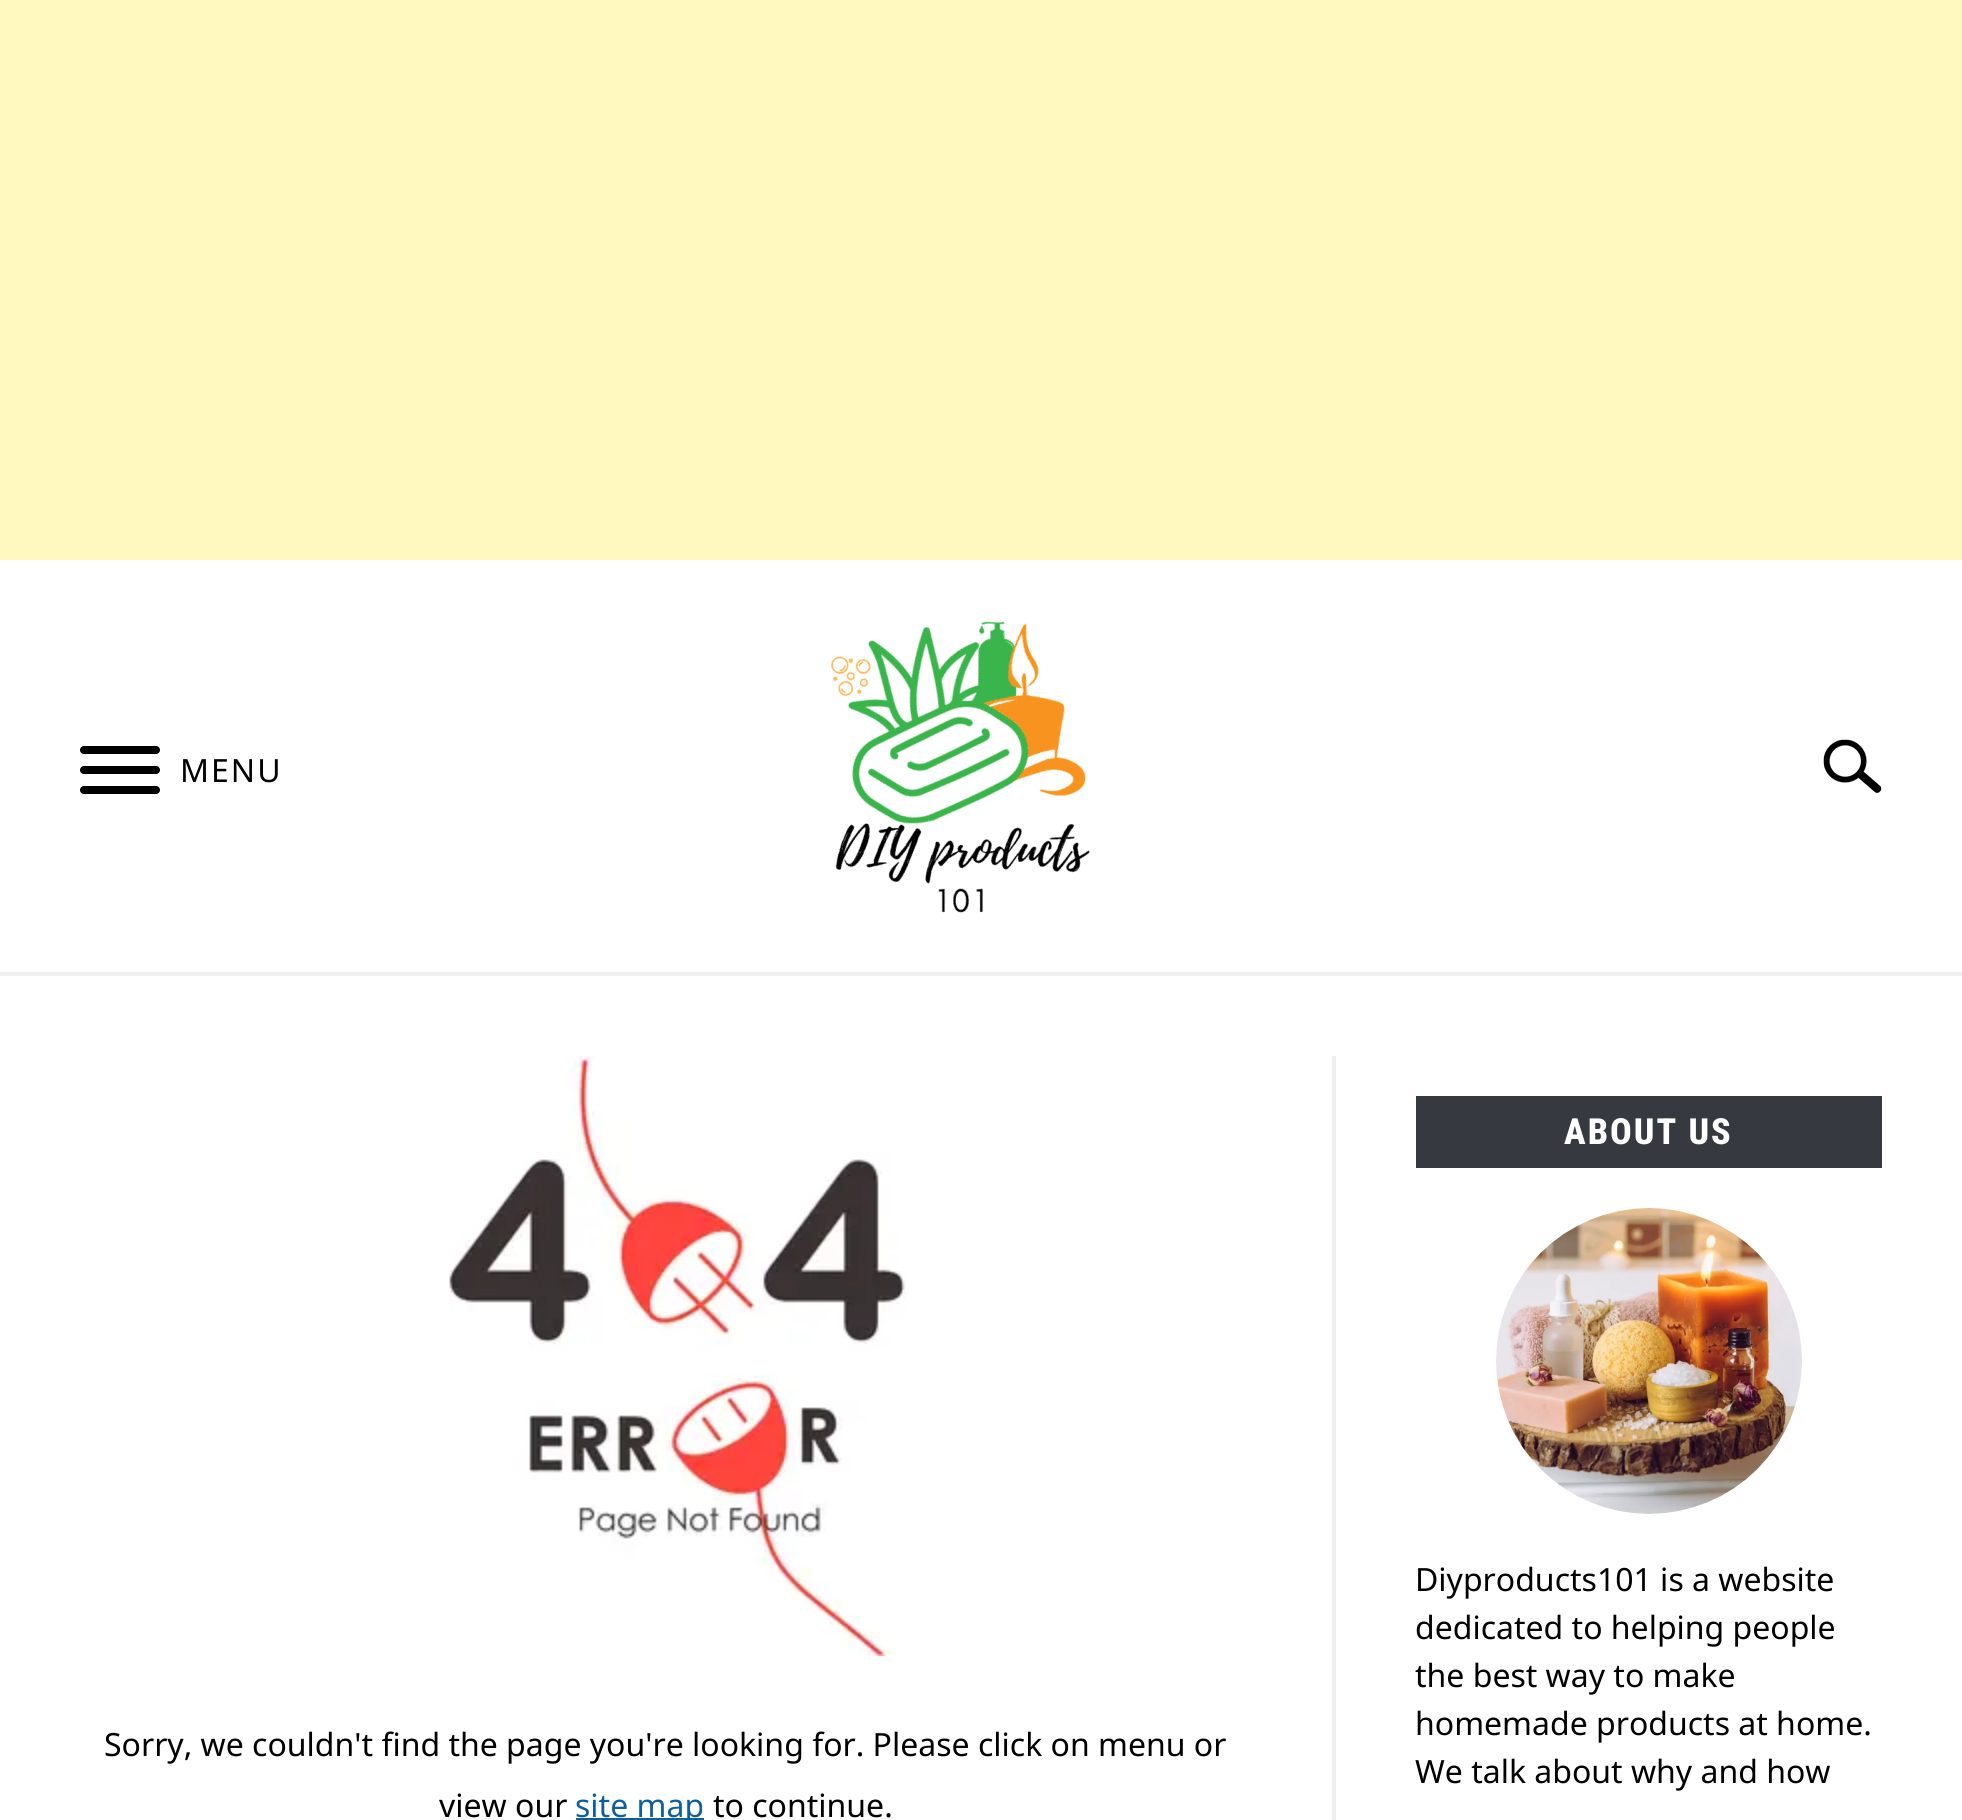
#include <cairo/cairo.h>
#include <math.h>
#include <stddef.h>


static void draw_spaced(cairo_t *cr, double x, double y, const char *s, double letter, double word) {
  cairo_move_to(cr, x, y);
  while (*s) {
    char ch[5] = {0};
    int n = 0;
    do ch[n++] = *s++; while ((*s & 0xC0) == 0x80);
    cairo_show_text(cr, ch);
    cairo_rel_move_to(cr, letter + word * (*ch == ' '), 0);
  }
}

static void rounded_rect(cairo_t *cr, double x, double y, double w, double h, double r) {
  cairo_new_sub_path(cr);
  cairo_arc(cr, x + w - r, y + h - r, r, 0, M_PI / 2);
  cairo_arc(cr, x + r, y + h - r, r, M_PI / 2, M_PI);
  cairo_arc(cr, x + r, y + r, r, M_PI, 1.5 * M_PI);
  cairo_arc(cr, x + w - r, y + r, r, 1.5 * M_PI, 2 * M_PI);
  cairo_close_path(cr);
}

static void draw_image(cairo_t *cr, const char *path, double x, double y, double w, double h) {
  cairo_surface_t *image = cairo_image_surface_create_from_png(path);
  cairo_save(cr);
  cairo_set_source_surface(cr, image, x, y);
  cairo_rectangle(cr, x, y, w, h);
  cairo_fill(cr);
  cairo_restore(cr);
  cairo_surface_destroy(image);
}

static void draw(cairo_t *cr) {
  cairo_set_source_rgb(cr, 1, 1, 1);
  cairo_paint(cr);
  cairo_set_source_rgb(cr, 1, 249 / 255.0, 192 / 255.0);
  cairo_rectangle(cr, 0, 0, 1962, 560);
  cairo_fill(cr);
  cairo_set_source_rgb(cr, 0, 0, 0);
  rounded_rect(cr, 80, 766, 80, 8, 4);
  cairo_fill(cr);
  rounded_rect(cr, 80, 746, 80, 8, 4);
  cairo_fill(cr);
  rounded_rect(cr, 80, 786, 80, 8, 4);
  cairo_fill(cr);
  draw_image(cr, "images/1.png", 831, 621, 259, 292);
  draw_image(cr, "images/2.png", 1823, 739, 59, 54);
  cairo_set_source_rgb(cr, 240 / 255.0, 240 / 255.0, 240 / 255.0);
  cairo_rectangle(cr, 0, 972, 1962, 4);
  cairo_fill(cr);
  draw_image(cr, "images/3.png", 449, 1056, 457, 600);
  cairo_set_source_rgb(cr, 15 / 255.0, 95 / 255.0, 159 / 255.0);
  cairo_rectangle(cr, 576, 1818, 128, 2);
  cairo_fill(cr);
  cairo_set_source_rgb(cr, 240 / 255.0, 240 / 255.0, 240 / 255.0);
  cairo_rectangle(cr, 1332, 1056, 4, 764);
  cairo_fill(cr);
  cairo_set_source_rgb(cr, 54 / 255.0, 57 / 255.0, 64 / 255.0);
  cairo_rectangle(cr, 1416, 1096, 466, 72);
  cairo_fill(cr);
  draw_image(cr, "images/4.png", 1496, 1208, 306, 306);
  cairo_select_font_face(cr, "Noto Sans", CAIRO_FONT_SLANT_NORMAL, CAIRO_FONT_WEIGHT_NORMAL);
  cairo_set_font_size(cr, 32);
  cairo_set_source_rgb(cr, 0, 0, 0);
  draw_spaced(cr, 180, 782, "MENU", 2, 0);
  cairo_move_to(cr, 104, 1756);
  cairo_show_text(cr, "Sorry, we couldn't find the page you're looking for. Please click on menu or");
  cairo_move_to(cr, 439, 1817);
  cairo_show_text(cr, "view our");
  cairo_set_source_rgb(cr, 15 / 255.0, 95 / 255.0, 159 / 255.0);
  cairo_move_to(cr, 575, 1817);
  cairo_show_text(cr, "site map");
  cairo_set_source_rgb(cr, 0, 0, 0);
  cairo_move_to(cr, 713, 1817);
  cairo_show_text(cr, "to continue.");
  cairo_select_font_face(cr, "Roboto Condensed ExtraBold", CAIRO_FONT_SLANT_NORMAL, CAIRO_FONT_WEIGHT_NORMAL);
  cairo_set_font_size(cr, 36);
  cairo_set_source_rgb(cr, 1, 1, 1);
  draw_spaced(cr, 1564, 1144, "ABOUT US", 2, 0);
  cairo_select_font_face(cr, "Noto Sans", CAIRO_FONT_SLANT_NORMAL, CAIRO_FONT_WEIGHT_NORMAL);
  cairo_set_font_size(cr, 32);
  cairo_set_source_rgb(cr, 0, 0, 0);
  cairo_move_to(cr, 1415, 1591);
  cairo_show_text(cr, "Diyproducts101 is a website");
  cairo_move_to(cr, 1415, 1639);
  cairo_show_text(cr, "dedicated to helping people");
  cairo_move_to(cr, 1415, 1687);
  cairo_show_text(cr, "the best way to make");
  cairo_move_to(cr, 1415, 1735);
  cairo_show_text(cr, "homemade products at home.");
  cairo_move_to(cr, 1415, 1783);
  cairo_show_text(cr, "We talk about why and how");
}

int main(void) {
  cairo_surface_t *surface = cairo_image_surface_create(CAIRO_FORMAT_RGB24, 1962, 1820);
  cairo_t *cr = cairo_create(surface);
  cairo_font_options_t *options = cairo_font_options_create();
  cairo_font_options_set_hint_metrics(options, CAIRO_HINT_METRICS_OFF);
  cairo_font_options_set_hint_style(options, CAIRO_HINT_STYLE_NONE);
  cairo_set_font_options(cr, options);
  cairo_set_miter_limit(cr, 4);
  draw(cr);
  cairo_surface_write_to_png(surface, "out.png");
  cairo_font_options_destroy(options);
  cairo_destroy(cr);
  cairo_surface_destroy(surface);
  return 0;
}
